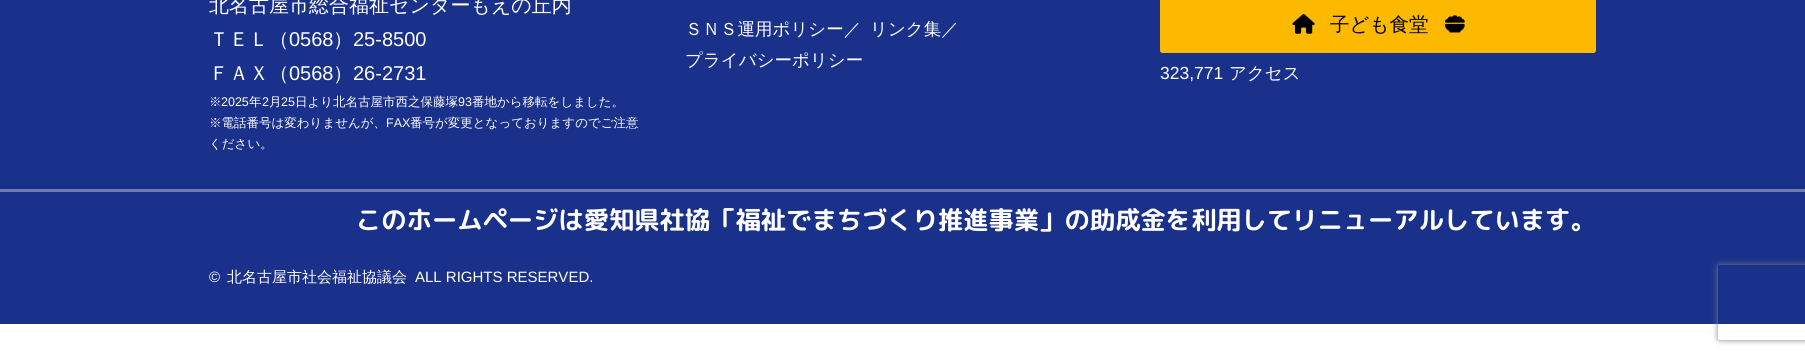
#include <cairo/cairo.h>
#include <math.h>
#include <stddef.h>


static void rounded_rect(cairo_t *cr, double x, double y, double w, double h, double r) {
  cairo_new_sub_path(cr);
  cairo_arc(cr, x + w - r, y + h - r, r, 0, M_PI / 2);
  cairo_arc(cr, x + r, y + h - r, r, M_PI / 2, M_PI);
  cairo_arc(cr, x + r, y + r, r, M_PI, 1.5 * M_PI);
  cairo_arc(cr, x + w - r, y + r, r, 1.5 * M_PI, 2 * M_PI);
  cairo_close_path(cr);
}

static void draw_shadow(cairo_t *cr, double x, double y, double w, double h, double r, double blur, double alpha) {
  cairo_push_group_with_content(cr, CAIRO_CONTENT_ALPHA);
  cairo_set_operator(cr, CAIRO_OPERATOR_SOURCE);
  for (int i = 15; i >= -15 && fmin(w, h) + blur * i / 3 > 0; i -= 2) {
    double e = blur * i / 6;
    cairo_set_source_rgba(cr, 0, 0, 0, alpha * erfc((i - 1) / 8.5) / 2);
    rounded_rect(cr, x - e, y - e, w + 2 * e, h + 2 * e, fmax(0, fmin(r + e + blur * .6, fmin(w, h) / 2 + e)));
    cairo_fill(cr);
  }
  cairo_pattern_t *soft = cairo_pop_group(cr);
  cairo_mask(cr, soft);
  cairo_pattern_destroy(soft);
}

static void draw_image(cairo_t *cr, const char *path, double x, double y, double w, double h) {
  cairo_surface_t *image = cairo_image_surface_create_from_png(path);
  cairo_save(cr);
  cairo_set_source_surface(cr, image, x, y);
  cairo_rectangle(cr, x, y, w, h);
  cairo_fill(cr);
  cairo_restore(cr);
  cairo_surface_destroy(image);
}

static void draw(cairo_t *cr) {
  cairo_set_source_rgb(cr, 1, 1, 1);
  cairo_paint(cr);
  cairo_set_source_rgb(cr, 26 / 255.0, 49 / 255.0, 140 / 255.0);
  cairo_rectangle(cr, 0, 0, 1805, 324);
  cairo_fill(cr);
  cairo_set_source_rgb(cr, 252 / 255.0, 185 / 255.0, 0);
  rounded_rect(cr, 1160, -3, 436, 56, 2.5);
  cairo_fill(cr);
  draw_image(cr, "images/1.png", 1292, 14, 23, 20);
  draw_image(cr, "images/2.png", 1445, 15, 20, 18);
  cairo_set_source_rgb(cr, 111 / 255.0, 123 / 255.0, 175 / 255.0);
  cairo_rectangle(cr, 0, 189, 1805, 3);
  cairo_fill(cr);
  cairo_save(cr);
  cairo_set_fill_rule(cr, CAIRO_FILL_RULE_EVEN_ODD);
  cairo_new_path(cr);
  cairo_move_to(cr, 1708, 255);
  cairo_line_to(cr, 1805, 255);
  cairo_line_to(cr, 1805, 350);
  cairo_line_to(cr, 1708, 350);
  cairo_close_path(cr);
  cairo_move_to(cr, 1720.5, 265);
  cairo_line_to(cr, 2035.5, 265);
  cairo_curve_to(cr, 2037, 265, 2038, 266, 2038, 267.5);
  cairo_line_to(cr, 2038, 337.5);
  cairo_curve_to(cr, 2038, 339, 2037, 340, 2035.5, 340);
  cairo_line_to(cr, 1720.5, 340);
  cairo_curve_to(cr, 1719, 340, 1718, 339, 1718, 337.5);
  cairo_line_to(cr, 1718, 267.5);
  cairo_curve_to(cr, 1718, 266, 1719, 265, 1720.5, 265);
  cairo_close_path(cr);
  cairo_clip(cr);
  cairo_set_source_rgb(cr, 128 / 255.0, 128 / 255.0, 128 / 255.0);
  draw_shadow(cr, 1718, 265, 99, 75, 2.5, 3, 1);
  cairo_restore(cr);
  cairo_select_font_face(cr, "WenQuanYi Zen Hei Medium", CAIRO_FONT_SLANT_NORMAL, CAIRO_FONT_WEIGHT_NORMAL);
  cairo_set_font_size(cr, 20);
  cairo_set_source_rgb(cr, 1, 1, 1);
  cairo_move_to(cr, 209, 12);
  cairo_show_text(cr, "北名古屋市総合福祉センターもえの丘内");
  cairo_move_to(cr, 209, 46);
  cairo_show_text(cr, "ＴＥＬ（");
  cairo_select_font_face(cr, "Liberation Sans", CAIRO_FONT_SLANT_NORMAL, CAIRO_FONT_WEIGHT_NORMAL);
  cairo_move_to(cr, 289, 46);
  cairo_show_text(cr, "0568");
  cairo_select_font_face(cr, "WenQuanYi Zen Hei Medium", CAIRO_FONT_SLANT_NORMAL, CAIRO_FONT_WEIGHT_NORMAL);
  cairo_move_to(cr, 333, 46);
  cairo_show_text(cr, "）");
  cairo_select_font_face(cr, "Liberation Sans", CAIRO_FONT_SLANT_NORMAL, CAIRO_FONT_WEIGHT_NORMAL);
  cairo_move_to(cr, 353, 46);
  cairo_show_text(cr, "25-8500");
  cairo_select_font_face(cr, "WenQuanYi Zen Hei Medium", CAIRO_FONT_SLANT_NORMAL, CAIRO_FONT_WEIGHT_NORMAL);
  cairo_move_to(cr, 209, 80);
  cairo_show_text(cr, "ＦＡＸ（");
  cairo_select_font_face(cr, "Liberation Sans", CAIRO_FONT_SLANT_NORMAL, CAIRO_FONT_WEIGHT_NORMAL);
  cairo_move_to(cr, 289, 80);
  cairo_show_text(cr, "0568");
  cairo_select_font_face(cr, "WenQuanYi Zen Hei Medium", CAIRO_FONT_SLANT_NORMAL, CAIRO_FONT_WEIGHT_NORMAL);
  cairo_move_to(cr, 333, 80);
  cairo_show_text(cr, "）");
  cairo_select_font_face(cr, "Liberation Sans", CAIRO_FONT_SLANT_NORMAL, CAIRO_FONT_WEIGHT_NORMAL);
  cairo_move_to(cr, 353, 80);
  cairo_show_text(cr, "26-2731");
  cairo_select_font_face(cr, "WenQuanYi Zen Hei Medium", CAIRO_FONT_SLANT_NORMAL, CAIRO_FONT_WEIGHT_NORMAL);
  cairo_set_font_size(cr, 12.5);
  cairo_move_to(cr, 209, 106);
  cairo_show_text(cr, "※");
  cairo_select_font_face(cr, "Liberation Sans", CAIRO_FONT_SLANT_NORMAL, CAIRO_FONT_WEIGHT_NORMAL);
  cairo_move_to(cr, 221, 106);
  cairo_show_text(cr, "2025");
  cairo_select_font_face(cr, "WenQuanYi Zen Hei Medium", CAIRO_FONT_SLANT_NORMAL, CAIRO_FONT_WEIGHT_NORMAL);
  cairo_move_to(cr, 249, 106);
  cairo_show_text(cr, "年");
  cairo_select_font_face(cr, "Liberation Sans", CAIRO_FONT_SLANT_NORMAL, CAIRO_FONT_WEIGHT_NORMAL);
  cairo_move_to(cr, 262, 106);
  cairo_show_text(cr, "2");
  cairo_select_font_face(cr, "WenQuanYi Zen Hei Medium", CAIRO_FONT_SLANT_NORMAL, CAIRO_FONT_WEIGHT_NORMAL);
  cairo_move_to(cr, 269, 106);
  cairo_show_text(cr, "月");
  cairo_select_font_face(cr, "Liberation Sans", CAIRO_FONT_SLANT_NORMAL, CAIRO_FONT_WEIGHT_NORMAL);
  cairo_move_to(cr, 281, 106);
  cairo_show_text(cr, "25");
  cairo_select_font_face(cr, "WenQuanYi Zen Hei Medium", CAIRO_FONT_SLANT_NORMAL, CAIRO_FONT_WEIGHT_NORMAL);
  cairo_move_to(cr, 295, 106);
  cairo_show_text(cr, "日より北名古屋市西之保藤塚");
  cairo_select_font_face(cr, "Liberation Sans", CAIRO_FONT_SLANT_NORMAL, CAIRO_FONT_WEIGHT_NORMAL);
  cairo_move_to(cr, 458, 106);
  cairo_show_text(cr, "93");
  cairo_select_font_face(cr, "WenQuanYi Zen Hei Medium", CAIRO_FONT_SLANT_NORMAL, CAIRO_FONT_WEIGHT_NORMAL);
  cairo_move_to(cr, 472, 106);
  cairo_show_text(cr, "番地から移転をしました。");
  cairo_move_to(cr, 209, 127);
  cairo_show_text(cr, "※電話番号は変わりませんが、");
  cairo_select_font_face(cr, "Liberation Sans", CAIRO_FONT_SLANT_NORMAL, CAIRO_FONT_WEIGHT_NORMAL);
  cairo_move_to(cr, 386, 127);
  cairo_show_text(cr, "FAX");
  cairo_select_font_face(cr, "WenQuanYi Zen Hei Medium", CAIRO_FONT_SLANT_NORMAL, CAIRO_FONT_WEIGHT_NORMAL);
  cairo_move_to(cr, 410, 127);
  cairo_show_text(cr, "番号が変更となっておりますのでご注意");
  cairo_move_to(cr, 209, 148);
  cairo_show_text(cr, "ください。");
  cairo_set_font_size(cr, 17.5);
  cairo_move_to(cr, 685, 35);
  cairo_show_text(cr, "ＳＮＳ運用ポリシー／");
  cairo_move_to(cr, 870, 35);
  cairo_show_text(cr, "リンク集／");
  cairo_move_to(cr, 685, 66);
  cairo_show_text(cr, "プライバシーポリシー");
  cairo_set_font_size(cr, 19.5);
  cairo_set_source_rgb(cr, 0, 0, 0);
  cairo_move_to(cr, 1330, 31);
  cairo_show_text(cr, "子ども食堂");
  cairo_select_font_face(cr, "Liberation Sans", CAIRO_FONT_SLANT_NORMAL, CAIRO_FONT_WEIGHT_NORMAL);
  cairo_set_font_size(cr, 17.5);
  cairo_set_source_rgb(cr, 1, 1, 1);
  cairo_move_to(cr, 1160, 79);
  cairo_show_text(cr, "323,771");
  cairo_select_font_face(cr, "WenQuanYi Zen Hei Medium", CAIRO_FONT_SLANT_NORMAL, CAIRO_FONT_WEIGHT_NORMAL);
  cairo_move_to(cr, 1229, 79);
  cairo_show_text(cr, "アクセス");
  cairo_select_font_face(cr, "Rounded Mplus 1c Bold", CAIRO_FONT_SLANT_NORMAL, CAIRO_FONT_WEIGHT_BOLD);
  cairo_set_font_size(cr, 25.3);
  cairo_move_to(cr, 356, 229);
  cairo_show_text(cr, "このホームページは愛知県社協「福祉でまちづくり推進事業」の助成金を利用してリニューアルしています。");
  cairo_select_font_face(cr, "Liberation Sans", CAIRO_FONT_SLANT_NORMAL, CAIRO_FONT_WEIGHT_NORMAL);
  cairo_set_font_size(cr, 15);
  cairo_move_to(cr, 209, 282);
  cairo_show_text(cr, "©");
  cairo_select_font_face(cr, "WenQuanYi Zen Hei Medium", CAIRO_FONT_SLANT_NORMAL, CAIRO_FONT_WEIGHT_NORMAL);
  cairo_move_to(cr, 227, 282);
  cairo_show_text(cr, "北名古屋市社会福祉協議会");
  cairo_select_font_face(cr, "Liberation Sans", CAIRO_FONT_SLANT_NORMAL, CAIRO_FONT_WEIGHT_NORMAL);
  cairo_move_to(cr, 415, 282);
  cairo_show_text(cr, "ALL RIGHTS RESERVED.");
}

int main(void) {
  cairo_surface_t *surface = cairo_image_surface_create(CAIRO_FORMAT_RGB24, 1805, 357);
  cairo_t *cr = cairo_create(surface);
  cairo_font_options_t *options = cairo_font_options_create();
  cairo_font_options_set_hint_metrics(options, CAIRO_HINT_METRICS_OFF);
  cairo_font_options_set_hint_style(options, CAIRO_HINT_STYLE_NONE);
  cairo_set_font_options(cr, options);
  cairo_set_miter_limit(cr, 4);
  draw(cr);
  cairo_surface_write_to_png(surface, "out.png");
  cairo_font_options_destroy(options);
  cairo_destroy(cr);
  cairo_surface_destroy(surface);
  return 0;
}
